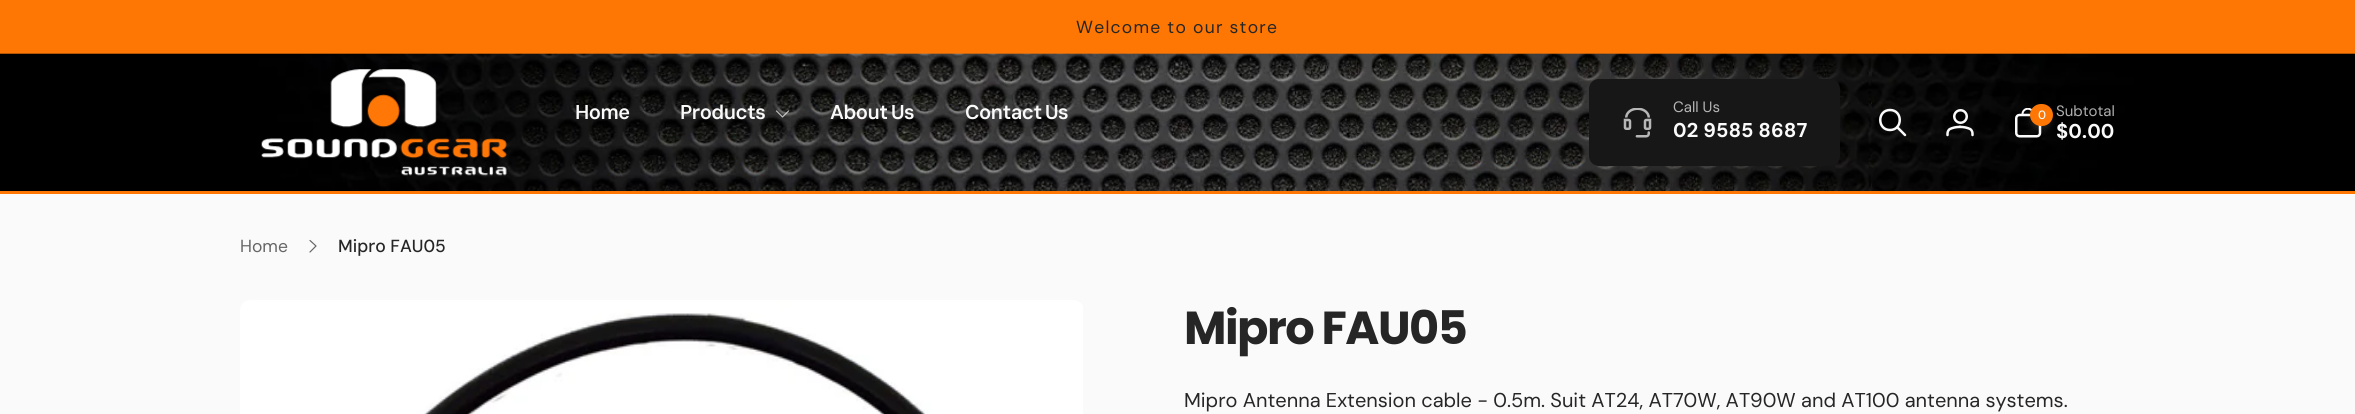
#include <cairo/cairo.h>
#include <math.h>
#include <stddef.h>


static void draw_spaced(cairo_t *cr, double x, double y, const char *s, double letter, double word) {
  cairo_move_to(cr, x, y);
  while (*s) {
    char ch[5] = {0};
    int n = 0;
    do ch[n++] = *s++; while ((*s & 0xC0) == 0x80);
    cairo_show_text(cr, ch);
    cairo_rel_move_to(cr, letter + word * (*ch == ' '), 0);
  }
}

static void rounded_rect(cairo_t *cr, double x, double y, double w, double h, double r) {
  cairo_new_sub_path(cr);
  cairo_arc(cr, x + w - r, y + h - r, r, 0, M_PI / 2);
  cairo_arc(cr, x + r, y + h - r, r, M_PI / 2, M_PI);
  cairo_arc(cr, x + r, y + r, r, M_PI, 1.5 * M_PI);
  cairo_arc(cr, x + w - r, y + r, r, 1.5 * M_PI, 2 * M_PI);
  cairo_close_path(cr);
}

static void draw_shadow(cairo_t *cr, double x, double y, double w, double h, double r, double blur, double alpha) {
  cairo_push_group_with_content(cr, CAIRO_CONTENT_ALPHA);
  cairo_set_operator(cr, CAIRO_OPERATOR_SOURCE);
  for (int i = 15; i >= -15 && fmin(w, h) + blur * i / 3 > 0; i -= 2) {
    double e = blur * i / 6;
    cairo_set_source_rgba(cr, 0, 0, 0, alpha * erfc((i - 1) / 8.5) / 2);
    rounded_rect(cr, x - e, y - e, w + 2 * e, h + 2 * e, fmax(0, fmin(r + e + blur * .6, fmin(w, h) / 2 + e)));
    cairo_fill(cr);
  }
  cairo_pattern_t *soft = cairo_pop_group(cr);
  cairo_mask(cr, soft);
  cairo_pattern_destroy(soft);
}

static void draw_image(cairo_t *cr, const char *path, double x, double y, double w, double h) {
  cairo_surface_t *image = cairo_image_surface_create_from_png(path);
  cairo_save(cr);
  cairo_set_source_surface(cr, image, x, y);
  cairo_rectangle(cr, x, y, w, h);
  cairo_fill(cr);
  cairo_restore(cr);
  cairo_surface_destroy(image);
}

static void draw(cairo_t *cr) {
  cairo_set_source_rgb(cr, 254 / 255.0, 119 / 255.0, 4 / 255.0);
  cairo_paint(cr);
  cairo_set_source_rgb(cr, 237 / 255.0, 113 / 255.0, 7 / 255.0);
  cairo_rectangle(cr, 0, 53, 2355, 1);
  cairo_fill(cr);
  draw_image(cr, "images/1.png", 0, 53, 2355, 138);
  draw_image(cr, "images/2.png", 261, 69, 246, 107);
  cairo_new_path(cr);
  cairo_move_to(cr, 788.5, 111);
  cairo_line_to(cr, 782.5, 117);
  cairo_line_to(cr, 776.5, 111);
  cairo_set_source_rgba(cr, 250 / 255.0, 250 / 255.0, 250 / 255.0, 0.7);
  cairo_set_line_width(cr, 1.2);
  cairo_set_line_cap(cr, CAIRO_LINE_CAP_ROUND);
  cairo_set_line_join(cr, CAIRO_LINE_JOIN_ROUND);
  cairo_stroke(cr);
  cairo_set_source_rgb(cr, 23 / 255.0, 23 / 255.0, 23 / 255.0);
  rounded_rect(cr, 1589, 79, 251, 87, 10);
  cairo_fill(cr);
  draw_image(cr, "images/3.png", 1623, 108, 29, 30);
  cairo_new_path(cr);
  cairo_move_to(cr, 1905, 135);
  cairo_line_to(cr, 1897, 127);
  cairo_move_to(cr, 1890, 130);
  cairo_curve_to(cr, 1903, 130, 1903, 110, 1890, 110);
  cairo_curve_to(cr, 1877, 110, 1877, 130, 1890, 130);
  cairo_close_path(cr);
  cairo_set_source_rgb(cr, 250 / 255.0, 250 / 255.0, 250 / 255.0);
  cairo_set_line_width(cr, 2.5);
  cairo_stroke(cr);
  draw_image(cr, "images/4.png", 1946, 109, 28, 28);
  draw_image(cr, "images/5.png", 2015, 108, 27, 30);
  cairo_set_source_rgb(cr, 250 / 255.0, 250 / 255.0, 250 / 255.0);
  draw_shadow(cr, 2031, 108, 20, 20, 10, 2.5, 0.06);
  draw_shadow(cr, 2031, 110, 20, 20, 10, 4, 0.1);
  cairo_set_source_rgb(cr, 254 / 255.0, 119 / 255.0, 4 / 255.0);
  rounded_rect(cr, 2030, 104, 23, 22, 11);
  cairo_fill(cr);
  cairo_set_source_rgb(cr, 250 / 255.0, 250 / 255.0, 250 / 255.0);
  cairo_rectangle(cr, 0, 194, 2355, 220);
  cairo_fill(cr);
  cairo_new_path(cr);
  cairo_move_to(cr, 310, 240.5);
  cairo_line_to(cr, 316, 246);
  cairo_line_to(cr, 310, 252);
  cairo_set_source_rgb(cr, 102 / 255.0, 102 / 255.0, 102 / 255.0);
  cairo_set_line_width(cr, 1.2);
  cairo_stroke(cr);
  draw_image(cr, "images/6.png", 240, 300, 843, 114);
  cairo_select_font_face(cr, "DM Sans", CAIRO_FONT_SLANT_NORMAL, CAIRO_FONT_WEIGHT_NORMAL);
  cairo_set_font_size(cr, 17.5);
  cairo_set_source_rgb(cr, 38 / 255.0, 38 / 255.0, 38 / 255.0);
  draw_spaced(cr, 1076, 33, "Welcome to our store", 1.25, 0);
  cairo_select_font_face(cr, "DM Sans SemiBold", CAIRO_FONT_SLANT_NORMAL, CAIRO_FONT_WEIGHT_NORMAL);
  cairo_set_font_size(cr, 20);
  cairo_set_source_rgb(cr, 250 / 255.0, 250 / 255.0, 250 / 255.0);
  draw_spaced(cr, 575, 119, "Home", -0.5, 0);
  draw_spaced(cr, 680, 119, "Products", -0.5, 0);
  draw_spaced(cr, 830, 119, "About Us", -0.5, -1);
  draw_spaced(cr, 965, 119, "Contact Us", -0.5, -1);
  cairo_select_font_face(cr, "DM Sans", CAIRO_FONT_SLANT_NORMAL, CAIRO_FONT_WEIGHT_NORMAL);
  cairo_set_font_size(cr, 15);
  cairo_set_source_rgb(cr, 182 / 255.0, 182 / 255.0, 182 / 255.0);
  cairo_move_to(cr, 1673, 112);
  cairo_show_text(cr, "Call Us");
  cairo_select_font_face(cr, "DM Sans", CAIRO_FONT_SLANT_NORMAL, CAIRO_FONT_WEIGHT_BOLD);
  cairo_set_font_size(cr, 20);
  cairo_set_source_rgb(cr, 250 / 255.0, 250 / 255.0, 250 / 255.0);
  cairo_move_to(cr, 1673, 137);
  cairo_show_text(cr, "02 9585 8687");
  cairo_select_font_face(cr, "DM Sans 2 Medium", CAIRO_FONT_SLANT_NORMAL, CAIRO_FONT_WEIGHT_NORMAL);
  cairo_set_font_size(cr, 12);
  cairo_move_to(cr, 2038, 119);
  cairo_show_text(cr, "0");
  cairo_select_font_face(cr, "DM Sans", CAIRO_FONT_SLANT_NORMAL, CAIRO_FONT_WEIGHT_NORMAL);
  cairo_set_font_size(cr, 15);
  cairo_set_source_rgb(cr, 175 / 255.0, 175 / 255.0, 175 / 255.0);
  cairo_move_to(cr, 2056, 116);
  cairo_show_text(cr, "Subtotal");
  cairo_select_font_face(cr, "DM Sans", CAIRO_FONT_SLANT_NORMAL, CAIRO_FONT_WEIGHT_BOLD);
  cairo_set_font_size(cr, 20);
  cairo_set_source_rgb(cr, 250 / 255.0, 250 / 255.0, 250 / 255.0);
  cairo_move_to(cr, 2056, 138);
  cairo_show_text(cr, "$0.00");
  cairo_select_font_face(cr, "DM Sans", CAIRO_FONT_SLANT_NORMAL, CAIRO_FONT_WEIGHT_NORMAL);
  cairo_set_font_size(cr, 17.5);
  cairo_set_source_rgb(cr, 102 / 255.0, 102 / 255.0, 102 / 255.0);
  cairo_move_to(cr, 240, 252);
  cairo_show_text(cr, "Home");
  cairo_select_font_face(cr, "DM Sans Medium", CAIRO_FONT_SLANT_NORMAL, CAIRO_FONT_WEIGHT_NORMAL);
  cairo_set_source_rgb(cr, 38 / 255.0, 38 / 255.0, 38 / 255.0);
  cairo_move_to(cr, 338, 252);
  cairo_show_text(cr, "Mipro FAU05");
  cairo_select_font_face(cr, "Poppins", CAIRO_FONT_SLANT_NORMAL, CAIRO_FONT_WEIGHT_BOLD);
  cairo_set_font_size(cr, 46.25);
  draw_spaced(cr, 1184, 344, "Mipro FAU05", -1.5, 0);
  cairo_select_font_face(cr, "DM Sans", CAIRO_FONT_SLANT_NORMAL, CAIRO_FONT_WEIGHT_NORMAL);
  cairo_set_font_size(cr, 20);
  cairo_move_to(cr, 1184, 407);
  cairo_show_text(cr, "Mipro Antenna Extension cable - 0.5m. Suit AT24, AT70W, AT90W and AT100 antenna systems.");
}

int main(void) {
  cairo_surface_t *surface = cairo_image_surface_create(CAIRO_FORMAT_RGB24, 2355, 414);
  cairo_t *cr = cairo_create(surface);
  cairo_font_options_t *options = cairo_font_options_create();
  cairo_font_options_set_hint_metrics(options, CAIRO_HINT_METRICS_OFF);
  cairo_font_options_set_hint_style(options, CAIRO_HINT_STYLE_NONE);
  cairo_set_font_options(cr, options);
  cairo_set_miter_limit(cr, 4);
  draw(cr);
  cairo_surface_write_to_png(surface, "out.png");
  cairo_font_options_destroy(options);
  cairo_destroy(cr);
  cairo_surface_destroy(surface);
  return 0;
}
